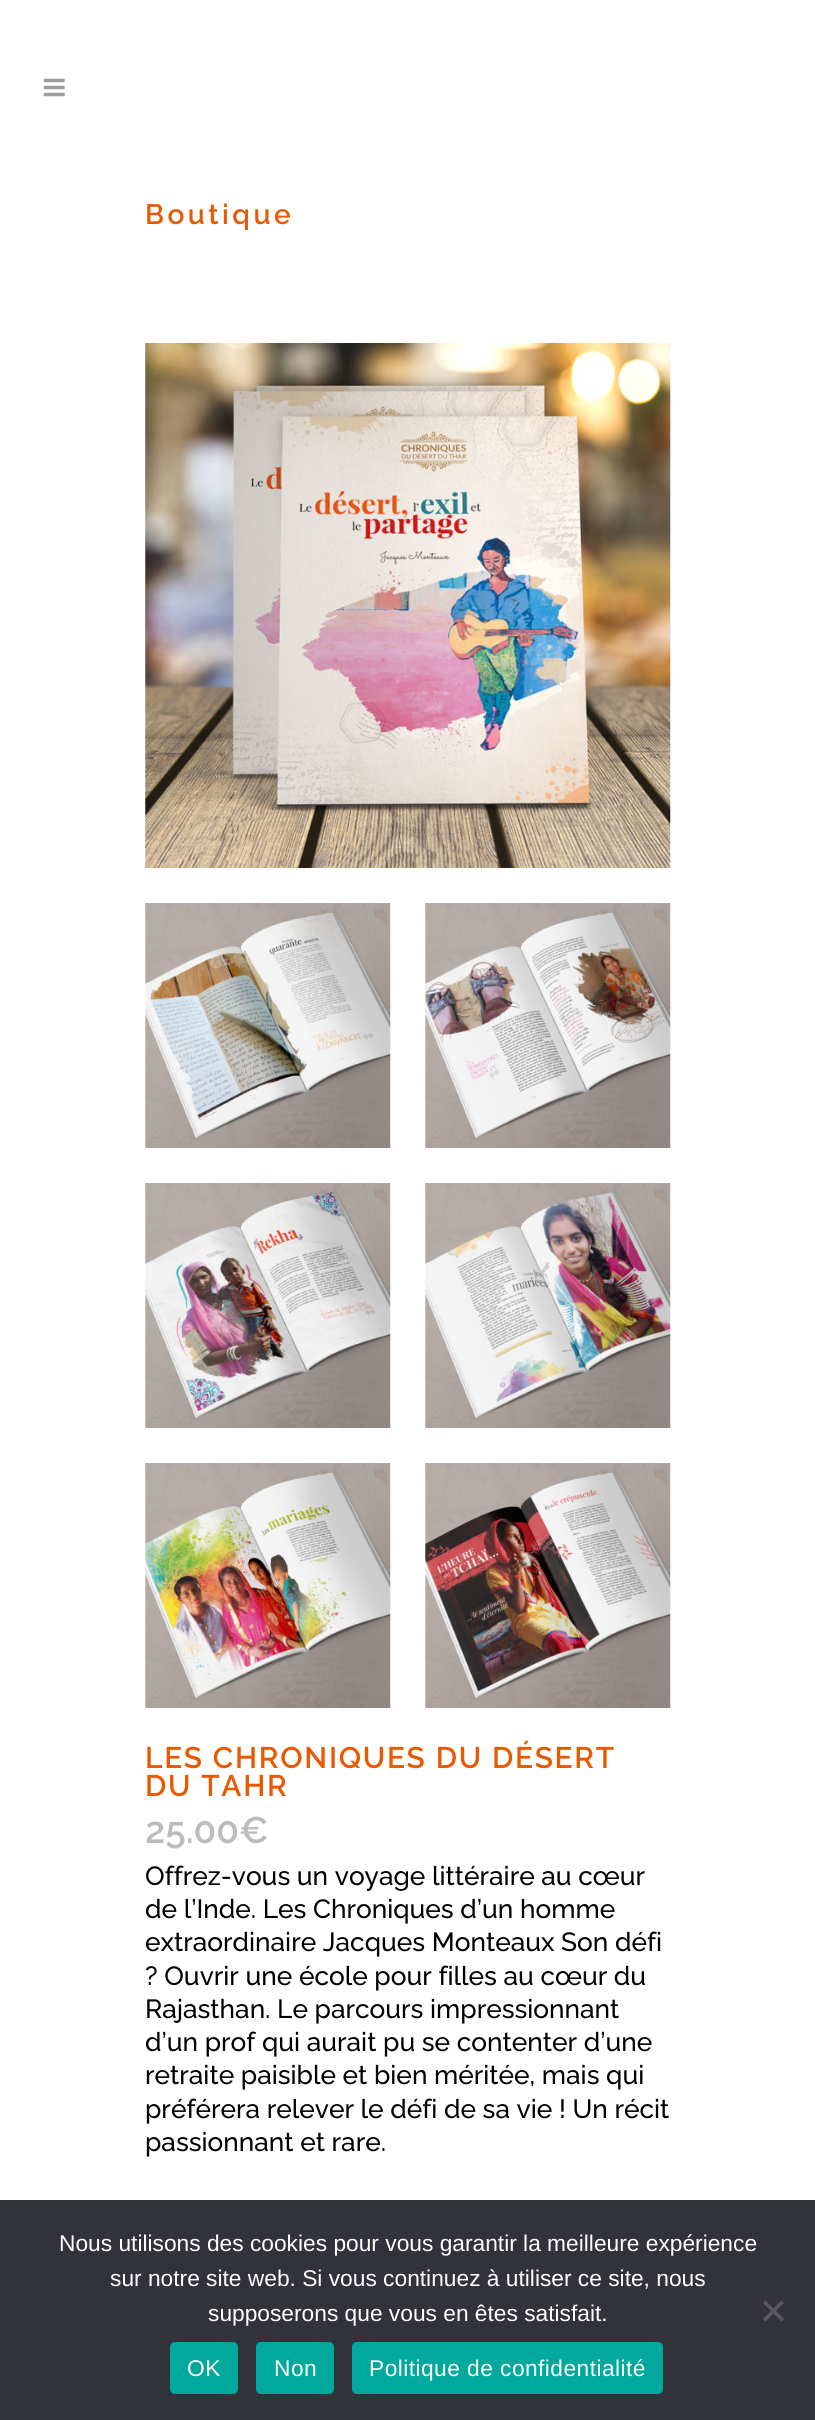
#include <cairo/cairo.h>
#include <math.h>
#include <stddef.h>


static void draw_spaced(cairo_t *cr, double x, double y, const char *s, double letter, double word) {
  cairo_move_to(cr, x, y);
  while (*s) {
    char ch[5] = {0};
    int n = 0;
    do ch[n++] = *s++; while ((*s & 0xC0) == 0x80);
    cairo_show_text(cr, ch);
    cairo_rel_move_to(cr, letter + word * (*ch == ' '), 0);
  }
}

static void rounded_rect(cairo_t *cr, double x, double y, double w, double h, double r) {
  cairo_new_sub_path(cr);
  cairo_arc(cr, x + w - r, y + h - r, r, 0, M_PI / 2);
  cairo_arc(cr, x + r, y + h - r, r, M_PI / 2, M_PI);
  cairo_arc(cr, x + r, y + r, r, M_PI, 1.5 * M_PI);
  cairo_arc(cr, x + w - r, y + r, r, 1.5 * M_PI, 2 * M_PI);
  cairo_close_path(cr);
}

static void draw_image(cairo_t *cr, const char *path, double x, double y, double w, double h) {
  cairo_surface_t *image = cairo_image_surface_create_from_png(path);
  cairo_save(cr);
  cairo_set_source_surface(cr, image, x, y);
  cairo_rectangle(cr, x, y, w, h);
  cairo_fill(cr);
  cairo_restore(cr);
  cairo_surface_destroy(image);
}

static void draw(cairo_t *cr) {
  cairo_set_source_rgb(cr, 1, 1, 1);
  cairo_paint(cr);
  draw_image(cr, "images/1.png", 43, 78, 22, 19);
  draw_image(cr, "images/2.png", 145, 343, 526, 525);
  draw_image(cr, "images/3.png", 145, 903, 246, 245);
  draw_image(cr, "images/4.png", 425, 903, 246, 245);
  draw_image(cr, "images/5.png", 145, 1183, 246, 245);
  draw_image(cr, "images/6.png", 425, 1183, 246, 245);
  draw_image(cr, "images/7.png", 145, 1463, 246, 245);
  draw_image(cr, "images/8.png", 425, 1463, 246, 245);
  cairo_set_source_rgb(cr, 50 / 255.0, 50 / 255.0, 58 / 255.0);
  cairo_rectangle(cr, 0, 2200, 815, 220);
  cairo_fill(cr);
  cairo_set_source_rgb(cr, 89 / 255.0, 89 / 255.0, 93 / 255.0);
  cairo_new_path(cr);
  cairo_move_to(cr, 781.5, 2300.5);
  cairo_line_to(cr, 784, 2303);
  cairo_line_to(cr, 765.5, 2321.5);
  cairo_line_to(cr, 763, 2319);
  cairo_close_path(cr);
  cairo_fill(cr);
  cairo_new_path(cr);
  cairo_move_to(cr, 763, 2303);
  cairo_line_to(cr, 765.5, 2300.5);
  cairo_line_to(cr, 784, 2319);
  cairo_line_to(cr, 781.5, 2321.5);
  cairo_close_path(cr);
  cairo_fill(cr);
  cairo_set_source_rgb(cr, 0, 169 / 255.0, 157 / 255.0);
  rounded_rect(cr, 170, 2342, 68, 52, 5);
  cairo_fill(cr);
  rounded_rect(cr, 256, 2342, 78, 52, 5);
  cairo_fill(cr);
  rounded_rect(cr, 352, 2342, 311, 52, 5);
  cairo_fill(cr);
  cairo_select_font_face(cr, "Raleway SemiBold", CAIRO_FONT_SLANT_NORMAL, CAIRO_FONT_WEIGHT_NORMAL);
  cairo_set_font_size(cr, 28);
  cairo_set_source_rgb(cr, 232 / 255.0, 89 / 255.0, 1 / 255.0);
  draw_spaced(cr, 145, 224, "Boutique", 3.5, 0);
  cairo_set_font_size(cr, 29.75);
  draw_spaced(cr, 145, 1768, "LES CHRONIQUES DU DÉSERT", 1.75, 0);
  draw_spaced(cr, 145, 1796, "DU TAHR", 1.75, 0);
  cairo_set_font_size(cr, 37);
  cairo_set_source_rgb(cr, 188 / 255.0, 188 / 255.0, 188 / 255.0);
  cairo_move_to(cr, 145, 1843);
  cairo_show_text(cr, "25.00€");
  cairo_select_font_face(cr, "Raleway Medium", CAIRO_FONT_SLANT_NORMAL, CAIRO_FONT_WEIGHT_NORMAL);
  cairo_set_font_size(cr, 26.25);
  cairo_set_source_rgb(cr, 0, 0, 0);
  cairo_move_to(cr, 145, 1885);
  cairo_show_text(cr, "Offrez-vous un voyage littéraire au cœur");
  cairo_move_to(cr, 145, 1918);
  cairo_show_text(cr, "de l’Inde. Les Chroniques d’un homme");
  cairo_move_to(cr, 145, 1951);
  cairo_show_text(cr, "extraordinaire Jacques Monteaux Son défi");
  cairo_move_to(cr, 145, 1985);
  cairo_show_text(cr, "? Ouvrir une école pour filles au cœur du");
  cairo_move_to(cr, 145, 2018);
  cairo_show_text(cr, "Rajasthan. Le parcours impressionnant");
  cairo_move_to(cr, 145, 2051);
  cairo_show_text(cr, "d’un prof qui aurait pu se contenter d’une");
  cairo_move_to(cr, 145, 2084);
  cairo_show_text(cr, "retraite paisible et bien méritée, mais qui");
  cairo_move_to(cr, 145, 2118);
  cairo_show_text(cr, "préférera relever le défi de sa vie ! Un récit");
  cairo_move_to(cr, 145, 2151);
  cairo_show_text(cr, "passionnant et rare.");
  cairo_select_font_face(cr, "Liberation Sans", CAIRO_FONT_SLANT_NORMAL, CAIRO_FONT_WEIGHT_NORMAL);
  cairo_set_font_size(cr, 22.75);
  cairo_set_source_rgb(cr, 1, 1, 1);
  cairo_move_to(cr, 59, 2251);
  cairo_show_text(cr, "Nous utilisons des cookies pour vous garantir la meilleure expérience");
  cairo_move_to(cr, 110, 2286);
  cairo_show_text(cr, "sur notre site web. Si vous continuez à utiliser ce site, nous");
  cairo_move_to(cr, 208, 2321);
  cairo_show_text(cr, "supposerons que vous en êtes satisfait.");
  draw_spaced(cr, 187, 2376, "OK", 0.45, 0);
  draw_spaced(cr, 274, 2376, "Non", 0.45, 0);
  draw_spaced(cr, 369, 2376, "Politique de confidentialité", 0.45, 0);
}

int main(void) {
  cairo_surface_t *surface = cairo_image_surface_create(CAIRO_FORMAT_RGB24, 815, 2420);
  cairo_t *cr = cairo_create(surface);
  cairo_font_options_t *options = cairo_font_options_create();
  cairo_font_options_set_hint_metrics(options, CAIRO_HINT_METRICS_OFF);
  cairo_font_options_set_hint_style(options, CAIRO_HINT_STYLE_NONE);
  cairo_set_font_options(cr, options);
  cairo_set_miter_limit(cr, 4);
  draw(cr);
  cairo_surface_write_to_png(surface, "out.png");
  cairo_font_options_destroy(options);
  cairo_destroy(cr);
  cairo_surface_destroy(surface);
  return 0;
}
